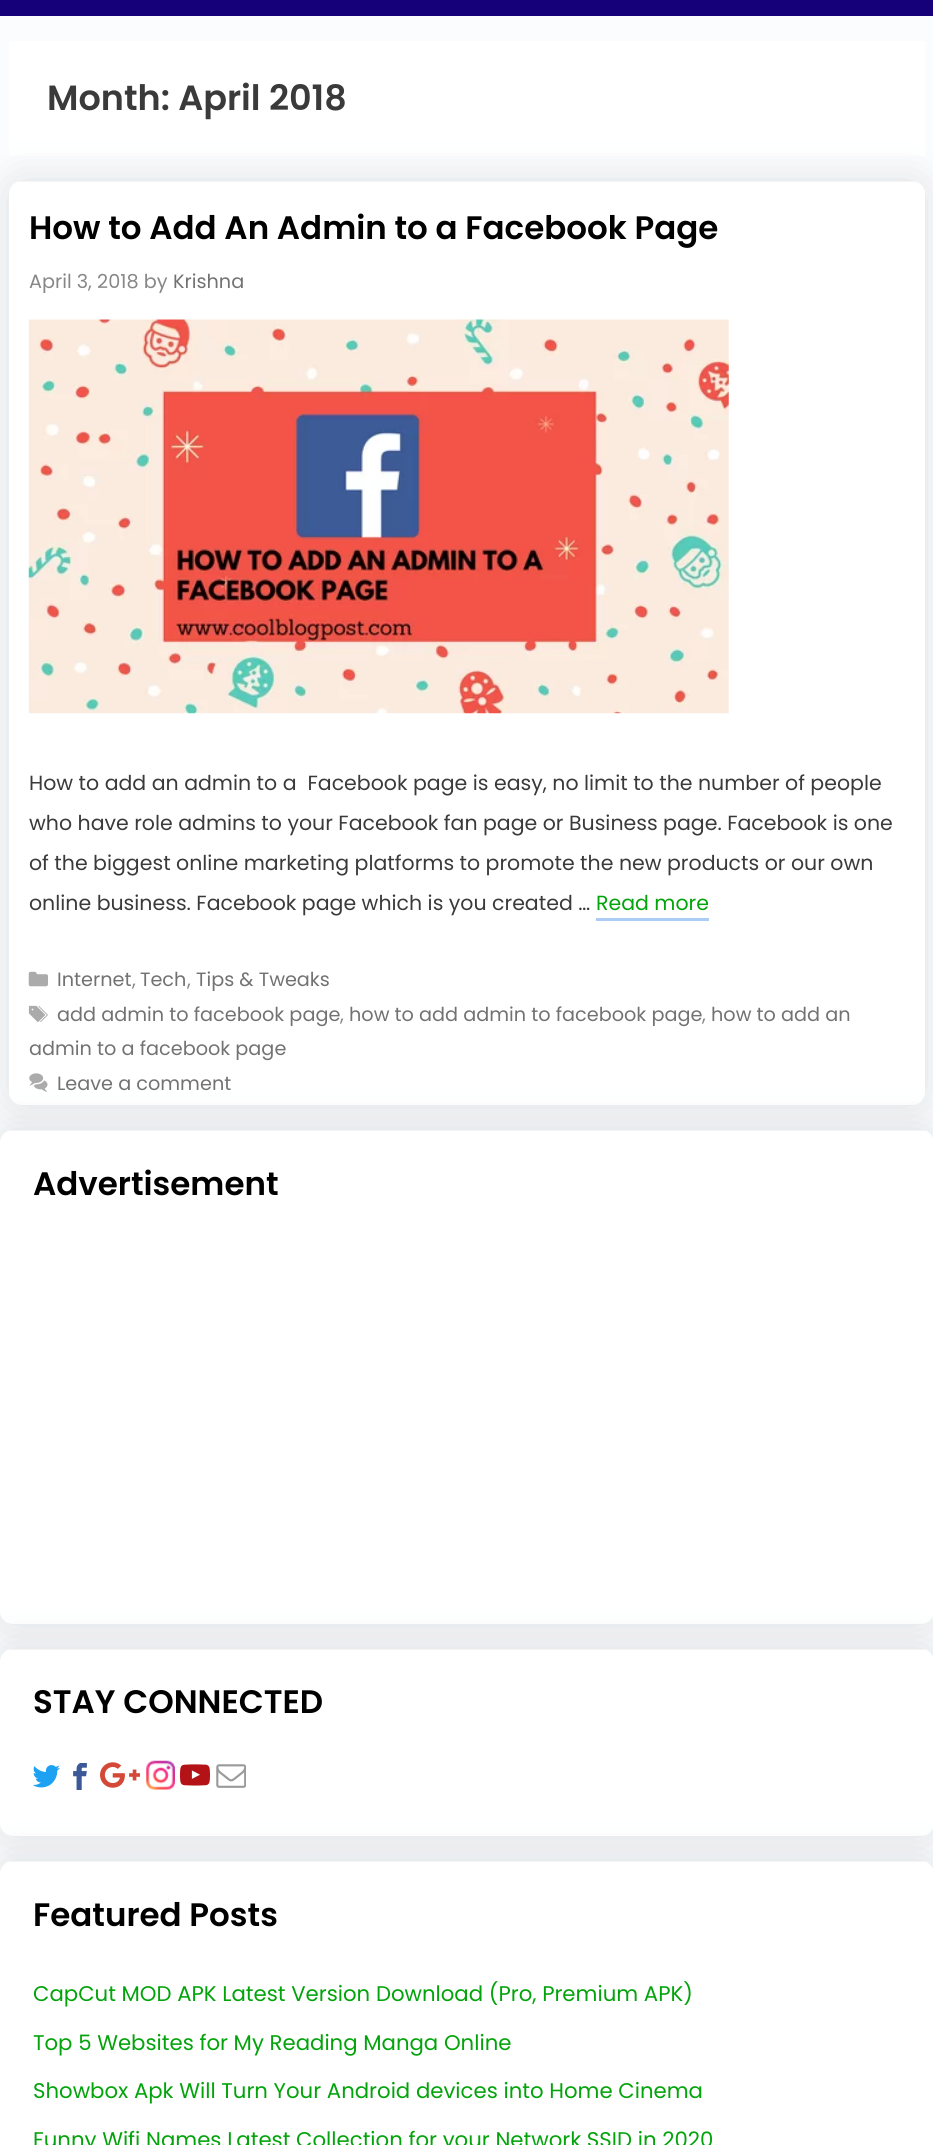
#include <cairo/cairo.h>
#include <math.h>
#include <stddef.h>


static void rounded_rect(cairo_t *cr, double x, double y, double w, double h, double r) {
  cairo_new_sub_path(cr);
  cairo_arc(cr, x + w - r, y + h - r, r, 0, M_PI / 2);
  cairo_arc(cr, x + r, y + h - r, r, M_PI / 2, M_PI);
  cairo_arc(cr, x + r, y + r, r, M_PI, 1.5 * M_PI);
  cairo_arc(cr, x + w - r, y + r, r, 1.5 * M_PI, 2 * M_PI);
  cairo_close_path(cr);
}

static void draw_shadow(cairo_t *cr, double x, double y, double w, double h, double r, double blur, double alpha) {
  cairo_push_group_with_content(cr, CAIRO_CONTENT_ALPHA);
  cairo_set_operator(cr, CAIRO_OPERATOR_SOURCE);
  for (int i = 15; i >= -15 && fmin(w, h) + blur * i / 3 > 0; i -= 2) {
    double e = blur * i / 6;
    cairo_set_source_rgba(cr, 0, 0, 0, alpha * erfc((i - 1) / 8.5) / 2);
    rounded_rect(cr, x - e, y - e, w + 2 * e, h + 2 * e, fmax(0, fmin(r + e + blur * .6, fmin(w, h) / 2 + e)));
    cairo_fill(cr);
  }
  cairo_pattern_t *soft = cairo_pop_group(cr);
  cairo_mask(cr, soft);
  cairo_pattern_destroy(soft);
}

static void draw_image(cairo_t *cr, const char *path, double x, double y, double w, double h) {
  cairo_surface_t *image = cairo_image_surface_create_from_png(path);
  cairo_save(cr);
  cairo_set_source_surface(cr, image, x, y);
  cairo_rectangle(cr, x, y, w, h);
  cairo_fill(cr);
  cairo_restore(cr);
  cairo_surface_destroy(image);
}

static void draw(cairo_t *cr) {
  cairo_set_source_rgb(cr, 251 / 255.0, 252 / 255.0, 253 / 255.0);
  cairo_paint(cr);
  cairo_set_source_rgb(cr, 22 / 255.0, 0, 122 / 255.0);
  cairo_rectangle(cr, 0, 0, 933, 16);
  cairo_fill(cr);
  cairo_set_source_rgb(cr, 1, 1, 1);
  cairo_rectangle(cr, 9, 41, 916, 115);
  cairo_fill(cr);
  cairo_set_source_rgb(cr, 189 / 255.0, 195 / 255.0, 203 / 255.0);
  draw_shadow(cr, 9, 181, 916, 924, 13, 19, 0.5);
  cairo_set_source_rgb(cr, 1, 1, 1);
  rounded_rect(cr, 9, 181, 916, 924, 13);
  cairo_fill(cr);
  cairo_set_source_rgb(cr, 244 / 255.0, 244 / 255.0, 244 / 255.0);
  cairo_rectangle(cr, 15, 181, 904, 1);
  cairo_fill(cr);
  draw_image(cr, "images/1.png", 28, 319, 701, 395);
  cairo_set_source_rgb(cr, 171 / 255.0, 205 / 255.0, 245 / 255.0);
  cairo_rectangle(cr, 596, 918, 113, 3);
  cairo_fill(cr);
  draw_image(cr, "images/2.png", 28, 971, 20, 16);
  draw_image(cr, "images/3.png", 28, 1005, 20, 17);
  cairo_set_source_rgb(cr, 189 / 255.0, 195 / 255.0, 203 / 255.0);
  draw_shadow(cr, 0, 1130, 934, 494, 13, 19, 0.5);
  draw_image(cr, "images/4.png", 29, 1073, 19, 19);
  cairo_set_source_rgb(cr, 1, 1, 1);
  rounded_rect(cr, 0, 1130, 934, 494, 13);
  cairo_fill(cr);
  cairo_set_source_rgb(cr, 244 / 255.0, 244 / 255.0, 244 / 255.0);
  cairo_rectangle(cr, 6, 1130, 922, 1);
  cairo_fill(cr);
  cairo_set_source_rgb(cr, 189 / 255.0, 195 / 255.0, 203 / 255.0);
  draw_shadow(cr, 0, 1649, 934, 187, 13, 19, 0.5);
  cairo_set_source_rgb(cr, 1, 1, 1);
  rounded_rect(cr, 0, 1649, 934, 187, 13);
  cairo_fill(cr);
  cairo_set_source_rgb(cr, 244 / 255.0, 244 / 255.0, 244 / 255.0);
  cairo_rectangle(cr, 6, 1649, 922, 1);
  cairo_fill(cr);
  draw_image(cr, "images/5.png", 33, 1765, 27, 23);
  draw_image(cr, "images/6.png", 73, 1763, 14, 27);
  draw_image(cr, "images/7.png", 100, 1762, 40, 26);
  draw_image(cr, "images/8.png", 146, 1760, 29, 30);
  draw_image(cr, "images/9.png", 180, 1764, 30, 22);
  draw_image(cr, "images/10.png", 216, 1764, 30, 24);
  cairo_set_source_rgb(cr, 189 / 255.0, 195 / 255.0, 203 / 255.0);
  draw_shadow(cr, 0, 1861, 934, 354, 13, 19, 0.5);
  cairo_set_source_rgb(cr, 1, 1, 1);
  rounded_rect(cr, 0, 1861, 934, 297, 13);
  cairo_fill(cr);
  cairo_set_source_rgb(cr, 244 / 255.0, 244 / 255.0, 244 / 255.0);
  cairo_rectangle(cr, 6, 1861, 922, 1);
  cairo_fill(cr);
  cairo_select_font_face(cr, "Poppins SemiBold", CAIRO_FONT_SLANT_NORMAL, CAIRO_FONT_WEIGHT_NORMAL);
  cairo_set_font_size(cr, 35);
  cairo_set_source_rgb(cr, 58 / 255.0, 58 / 255.0, 58 / 255.0);
  cairo_move_to(cr, 47, 110);
  cairo_show_text(cr, "Month: April 2018");
  cairo_set_font_size(cr, 32.5);
  cairo_set_source_rgb(cr, 0, 0, 0);
  cairo_move_to(cr, 29, 239);
  cairo_show_text(cr, "How to Add An Admin to a Facebook Page");
  cairo_select_font_face(cr, "Poppins", CAIRO_FONT_SLANT_NORMAL, CAIRO_FONT_WEIGHT_NORMAL);
  cairo_set_font_size(cr, 19.25);
  cairo_set_source_rgb(cr, 135 / 255.0, 135 / 255.0, 135 / 255.0);
  cairo_move_to(cr, 29, 288);
  cairo_show_text(cr, "April 3, 2018 by");
  cairo_set_source_rgb(cr, 114 / 255.0, 114 / 255.0, 114 / 255.0);
  cairo_move_to(cr, 173, 288);
  cairo_show_text(cr, "Krishna");
  cairo_set_font_size(cr, 20.5);
  cairo_set_source_rgb(cr, 58 / 255.0, 58 / 255.0, 58 / 255.0);
  cairo_move_to(cr, 29, 790);
  cairo_show_text(cr, "How to add an admin to a  Facebook page is easy, no limit to the number of people");
  cairo_move_to(cr, 29, 830);
  cairo_show_text(cr, "who have role admins to your Facebook fan page or Business page. Facebook is one");
  cairo_move_to(cr, 29, 870);
  cairo_show_text(cr, "of the biggest online marketing platforms to promote the new products or our own");
  cairo_move_to(cr, 29, 910);
  cairo_show_text(cr, "online business. Facebook page which is you created …");
  cairo_set_source_rgb(cr, 3 / 255.0, 163 / 255.0, 11 / 255.0);
  cairo_move_to(cr, 596, 910);
  cairo_show_text(cr, "Read more");
  cairo_set_font_size(cr, 19.25);
  cairo_set_source_rgb(cr, 114 / 255.0, 114 / 255.0, 114 / 255.0);
  cairo_move_to(cr, 57, 986);
  cairo_show_text(cr, "Internet");
  cairo_set_source_rgb(cr, 135 / 255.0, 135 / 255.0, 135 / 255.0);
  cairo_move_to(cr, 132, 986);
  cairo_show_text(cr, ",");
  cairo_set_source_rgb(cr, 114 / 255.0, 114 / 255.0, 114 / 255.0);
  cairo_move_to(cr, 140, 986);
  cairo_show_text(cr, "Tech");
  cairo_set_source_rgb(cr, 135 / 255.0, 135 / 255.0, 135 / 255.0);
  cairo_move_to(cr, 187, 986);
  cairo_show_text(cr, ",");
  cairo_set_source_rgb(cr, 114 / 255.0, 114 / 255.0, 114 / 255.0);
  cairo_move_to(cr, 196, 986);
  cairo_show_text(cr, "Tips & Tweaks");
  cairo_move_to(cr, 57, 1021);
  cairo_show_text(cr, "add admin to facebook page");
  cairo_set_source_rgb(cr, 135 / 255.0, 135 / 255.0, 135 / 255.0);
  cairo_move_to(cr, 340, 1021);
  cairo_show_text(cr, ",");
  cairo_set_source_rgb(cr, 114 / 255.0, 114 / 255.0, 114 / 255.0);
  cairo_move_to(cr, 349, 1021);
  cairo_show_text(cr, "how to add admin to facebook page");
  cairo_set_source_rgb(cr, 135 / 255.0, 135 / 255.0, 135 / 255.0);
  cairo_move_to(cr, 702, 1021);
  cairo_show_text(cr, ",");
  cairo_set_source_rgb(cr, 114 / 255.0, 114 / 255.0, 114 / 255.0);
  cairo_move_to(cr, 711, 1021);
  cairo_show_text(cr, "how to add an");
  cairo_move_to(cr, 29, 1055);
  cairo_show_text(cr, "admin to a facebook page");
  cairo_move_to(cr, 57, 1090);
  cairo_show_text(cr, "Leave a comment");
  cairo_select_font_face(cr, "Poppins SemiBold", CAIRO_FONT_SLANT_NORMAL, CAIRO_FONT_WEIGHT_NORMAL);
  cairo_set_font_size(cr, 32.5);
  cairo_set_source_rgb(cr, 0, 0, 0);
  cairo_move_to(cr, 33, 1195);
  cairo_show_text(cr, "Advertisement");
  cairo_move_to(cr, 33, 1713);
  cairo_show_text(cr, "STAY CONNECTED");
  cairo_move_to(cr, 33, 1926);
  cairo_show_text(cr, "Featured Posts");
  cairo_select_font_face(cr, "Poppins", CAIRO_FONT_SLANT_NORMAL, CAIRO_FONT_WEIGHT_NORMAL);
  cairo_set_font_size(cr, 21.25);
  cairo_set_source_rgb(cr, 3 / 255.0, 163 / 255.0, 11 / 255.0);
  cairo_move_to(cr, 33, 2001);
  cairo_show_text(cr, "CapCut MOD APK Latest Version Download (Pro, Premium APK)");
  cairo_move_to(cr, 33, 2050);
  cairo_show_text(cr, "Top 5 Websites for My Reading Manga Online");
  cairo_move_to(cr, 33, 2098);
  cairo_show_text(cr, "Showbox Apk Will Turn Your Android devices into Home Cinema");
  cairo_move_to(cr, 33, 2147);
  cairo_show_text(cr, "Funny Wifi Names Latest Collection for your Network SSID in 2020");
}

int main(void) {
  cairo_surface_t *surface = cairo_image_surface_create(CAIRO_FORMAT_RGB24, 933, 2145);
  cairo_t *cr = cairo_create(surface);
  cairo_font_options_t *options = cairo_font_options_create();
  cairo_font_options_set_hint_metrics(options, CAIRO_HINT_METRICS_OFF);
  cairo_font_options_set_hint_style(options, CAIRO_HINT_STYLE_NONE);
  cairo_set_font_options(cr, options);
  cairo_set_miter_limit(cr, 4);
  draw(cr);
  cairo_surface_write_to_png(surface, "out.png");
  cairo_font_options_destroy(options);
  cairo_destroy(cr);
  cairo_surface_destroy(surface);
  return 0;
}
